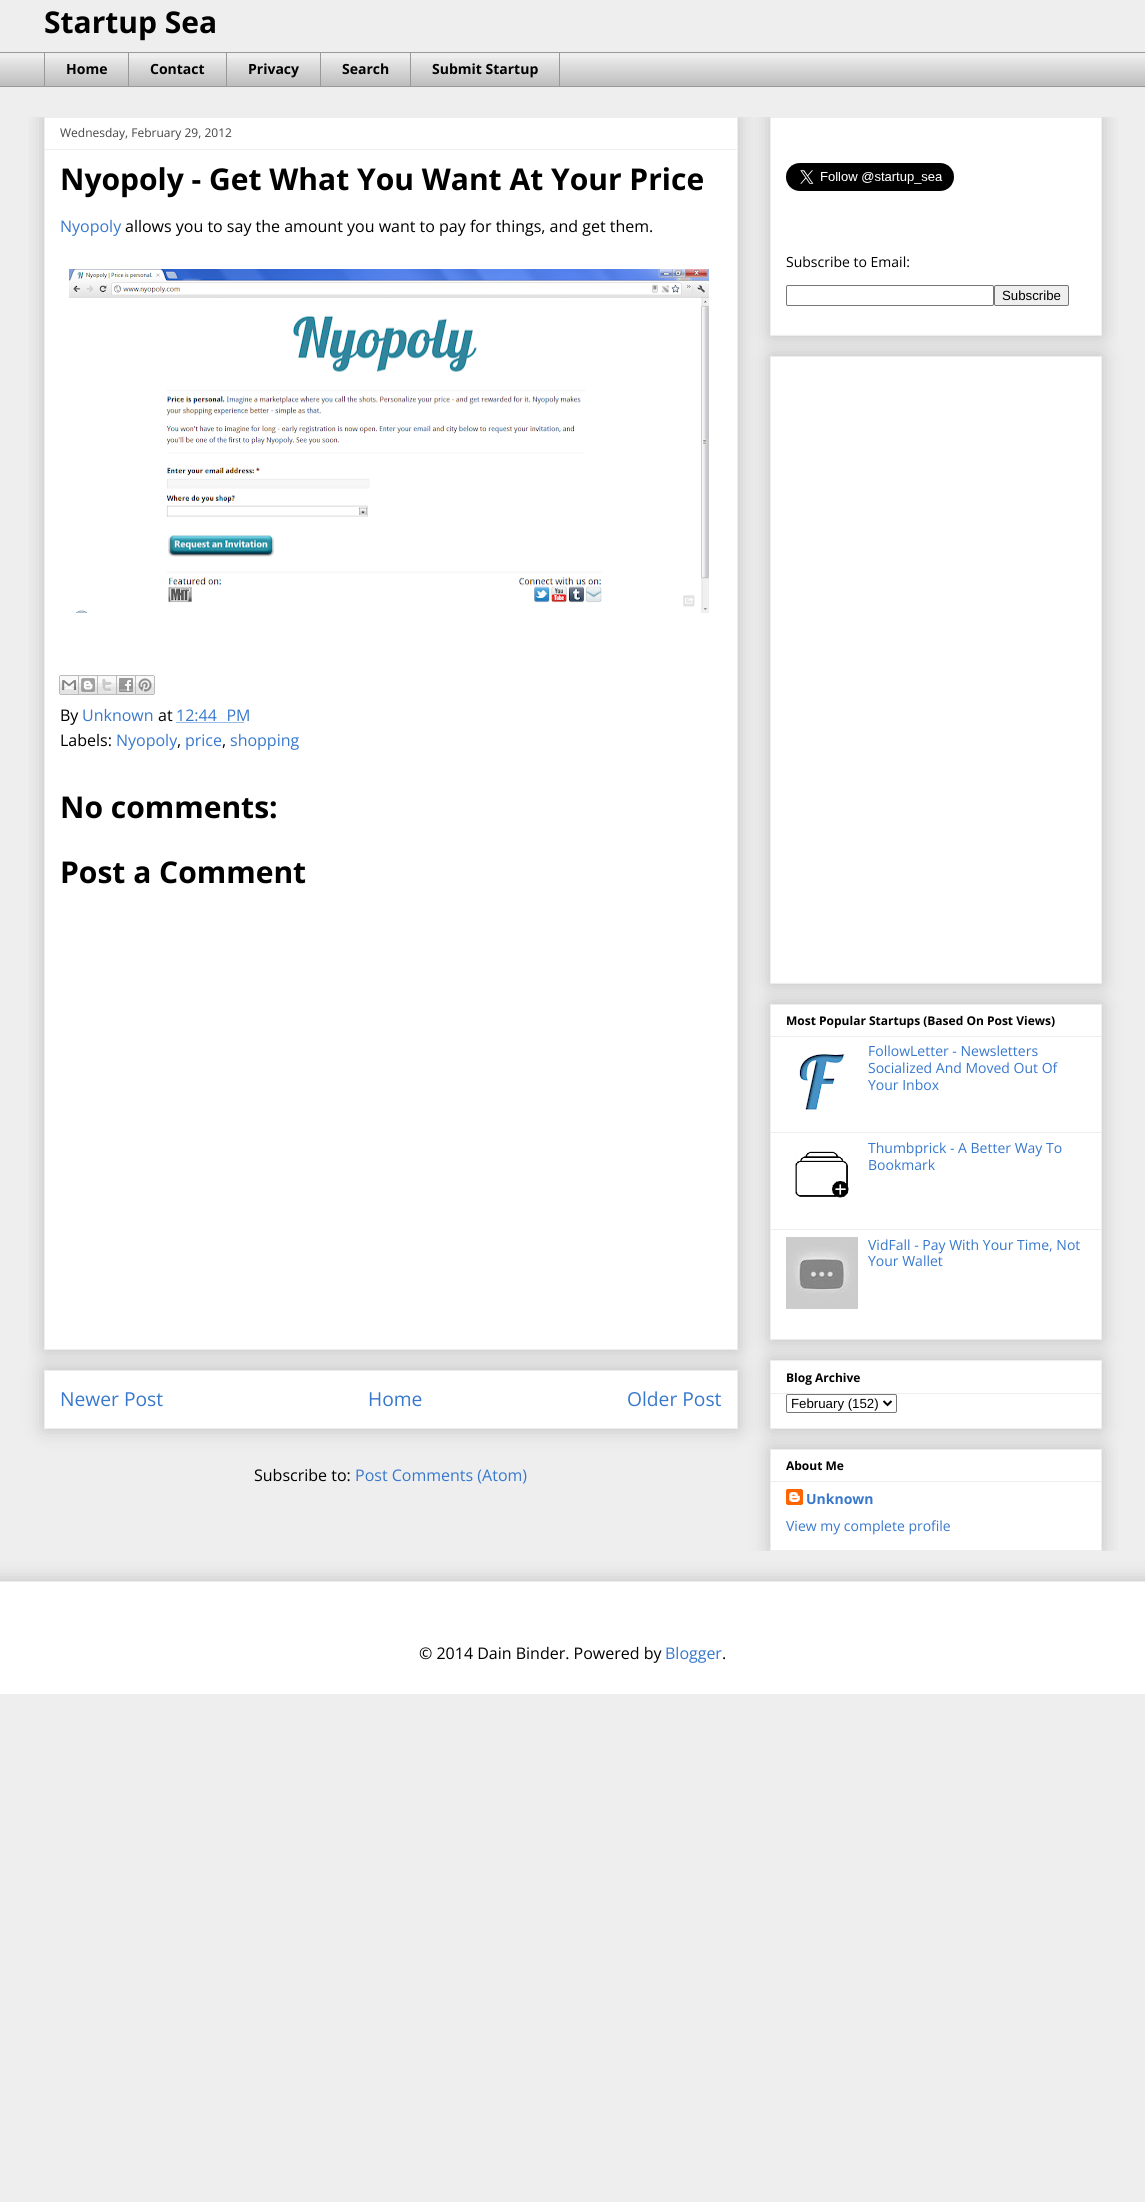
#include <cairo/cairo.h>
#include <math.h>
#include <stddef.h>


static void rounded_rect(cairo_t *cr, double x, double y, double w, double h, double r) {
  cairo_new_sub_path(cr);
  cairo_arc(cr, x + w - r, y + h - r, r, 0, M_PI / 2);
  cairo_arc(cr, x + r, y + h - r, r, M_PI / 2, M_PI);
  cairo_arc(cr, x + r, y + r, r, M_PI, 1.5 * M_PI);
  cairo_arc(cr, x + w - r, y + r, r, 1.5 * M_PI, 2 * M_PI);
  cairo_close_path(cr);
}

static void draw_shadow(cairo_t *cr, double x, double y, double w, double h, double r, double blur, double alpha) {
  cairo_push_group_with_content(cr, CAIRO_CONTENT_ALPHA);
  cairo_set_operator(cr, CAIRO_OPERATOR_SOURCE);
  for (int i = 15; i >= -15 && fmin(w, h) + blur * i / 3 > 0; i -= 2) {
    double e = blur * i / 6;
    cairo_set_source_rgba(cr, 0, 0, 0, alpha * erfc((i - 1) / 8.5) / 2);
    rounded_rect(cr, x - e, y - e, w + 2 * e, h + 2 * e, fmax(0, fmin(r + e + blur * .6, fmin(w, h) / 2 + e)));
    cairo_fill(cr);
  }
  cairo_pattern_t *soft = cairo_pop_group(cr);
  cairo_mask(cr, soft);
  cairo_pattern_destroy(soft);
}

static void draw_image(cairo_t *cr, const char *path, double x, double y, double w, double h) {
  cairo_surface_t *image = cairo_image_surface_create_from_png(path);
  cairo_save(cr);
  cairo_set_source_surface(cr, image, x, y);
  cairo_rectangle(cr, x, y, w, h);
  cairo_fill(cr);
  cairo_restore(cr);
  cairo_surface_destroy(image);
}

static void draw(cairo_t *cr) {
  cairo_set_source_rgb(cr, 238 / 255.0, 238 / 255.0, 238 / 255.0);
  cairo_paint(cr);
  draw_image(cr, "images/1.png", 0, 58, 1145, 28);
  cairo_set_source_rgb(cr, 153 / 255.0, 153 / 255.0, 153 / 255.0);
  cairo_rectangle(cr, 0, 52, 1145, 1);
  cairo_fill(cr);
  cairo_rectangle(cr, 44, 52, 1, 35);
  cairo_fill(cr);
  cairo_rectangle(cr, 128, 52, 1, 35);
  cairo_fill(cr);
  cairo_rectangle(cr, 226, 52, 1, 35);
  cairo_fill(cr);
  cairo_rectangle(cr, 320, 52, 1, 35);
  cairo_fill(cr);
  cairo_rectangle(cr, 410.5, 52.5, 149, 34);
  cairo_set_line_width(cr, 1);
  cairo_stroke(cr);
  cairo_rectangle(cr, 0, 86, 1145, 1);
  cairo_fill(cr);
  cairo_set_source_rgb(cr, 0, 0, 0);
  draw_shadow(cr, 44, 1370, 694, 59, 0, 10, 0.2);
  cairo_set_source_rgb(cr, 1, 1, 1);
  cairo_rectangle(cr, 44.5, 1370.5, 693, 58);
  cairo_fill_preserve(cr);
  cairo_set_source_rgb(cr, 238 / 255.0, 238 / 255.0, 238 / 255.0);
  cairo_stroke(cr);
  cairo_save(cr);
  cairo_rectangle(cr, 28, 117, 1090, 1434);
  cairo_clip(cr);
  cairo_set_source_rgb(cr, 0, 0, 0);
  draw_shadow(cr, 44, 117, 694, 1233, 0, 10, 0.2);
  cairo_restore(cr);
  cairo_set_source_rgb(cr, 1, 1, 1);
  cairo_rectangle(cr, 44.5, 117.5, 693, 1232);
  cairo_fill_preserve(cr);
  cairo_set_source_rgb(cr, 238 / 255.0, 238 / 255.0, 238 / 255.0);
  cairo_stroke(cr);
  cairo_rectangle(cr, 45, 149, 692, 1);
  cairo_fill(cr);
  draw_image(cr, "images/2.png", 69, 269, 640, 344);
  draw_image(cr, "images/3.png", 59, 675, 20, 20);
  draw_image(cr, "images/4.png", 79, 675, 19, 20);
  draw_image(cr, "images/5.png", 98, 675, 19, 20);
  draw_image(cr, "images/6.png", 117, 675, 19, 20);
  draw_image(cr, "images/7.png", 136, 675, 19, 20);
  cairo_new_path(cr);
  cairo_move_to(cr, 176.5, 722.5);
  cairo_line_to(cr, 243.5, 722.5);
  cairo_set_source_rgb(cr, 55 / 255.0, 120 / 255.0, 205 / 255.0);
  cairo_set_dash(cr, (double[]){1, 1}, 2, 0);
  cairo_stroke(cr);
  cairo_save(cr);
  cairo_rectangle(cr, 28, 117, 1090, 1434);
  cairo_clip(cr);
  cairo_set_source_rgb(cr, 0, 0, 0);
  draw_shadow(cr, 770, 117, 332, 219, 0, 10, 0.2);
  cairo_restore(cr);
  cairo_set_source_rgb(cr, 1, 1, 1);
  cairo_rectangle(cr, 770.5, 117.5, 331, 218);
  cairo_fill_preserve(cr);
  cairo_set_source_rgb(cr, 238 / 255.0, 238 / 255.0, 238 / 255.0);
  cairo_set_dash(cr, NULL, 0, 0);
  cairo_stroke(cr);
  draw_image(cr, "images/8.png", 786, 163, 168, 28);
  rounded_rect(cr, 786.5, 285.5, 207, 20, 1.5);
  cairo_set_source_rgb(cr, 118 / 255.0, 118 / 255.0, 118 / 255.0);
  cairo_stroke(cr);
  cairo_set_source_rgb(cr, 239 / 255.0, 239 / 255.0, 239 / 255.0);
  rounded_rect(cr, 994.5, 285.5, 74, 20, 1.5);
  cairo_fill_preserve(cr);
  cairo_set_source_rgb(cr, 118 / 255.0, 118 / 255.0, 118 / 255.0);
  cairo_stroke(cr);
  cairo_set_source_rgb(cr, 0, 0, 0);
  draw_shadow(cr, 770, 356, 332, 628, 0, 10, 0.2);
  cairo_set_source_rgb(cr, 1, 1, 1);
  cairo_rectangle(cr, 770.5, 356.5, 331, 627);
  cairo_fill_preserve(cr);
  cairo_set_source_rgb(cr, 238 / 255.0, 238 / 255.0, 238 / 255.0);
  cairo_stroke(cr);
  cairo_set_source_rgb(cr, 0, 0, 0);
  draw_shadow(cr, 770, 1004, 332, 336, 0, 10, 0.2);
  cairo_set_source_rgb(cr, 1, 1, 1);
  cairo_rectangle(cr, 770.5, 1004.5, 331, 335);
  cairo_fill_preserve(cr);
  cairo_set_source_rgb(cr, 238 / 255.0, 238 / 255.0, 238 / 255.0);
  cairo_stroke(cr);
  cairo_rectangle(cr, 771, 1036, 330, 1);
  cairo_fill(cr);
  draw_image(cr, "images/9.png", 799, 1054, 46, 56);
  cairo_rectangle(cr, 771, 1132, 330, 1);
  cairo_fill(cr);
  draw_image(cr, "images/10.png", 795, 1151, 54, 47);
  cairo_rectangle(cr, 771, 1229, 330, 1);
  cairo_fill(cr);
  draw_image(cr, "images/11.png", 786, 1237, 72, 72);
  cairo_set_source_rgb(cr, 0, 0, 0);
  draw_shadow(cr, 770, 1360, 332, 69, 0, 10, 0.2);
  cairo_set_source_rgb(cr, 1, 1, 1);
  cairo_rectangle(cr, 770.5, 1360.5, 331, 68);
  cairo_fill_preserve(cr);
  cairo_set_source_rgb(cr, 238 / 255.0, 238 / 255.0, 238 / 255.0);
  cairo_stroke(cr);
  cairo_rectangle(cr, 771, 1393, 330, 1);
  cairo_fill(cr);
  rounded_rect(cr, 786.5, 1394.5, 110, 18, 1.5);
  cairo_set_source_rgb(cr, 118 / 255.0, 118 / 255.0, 118 / 255.0);
  cairo_stroke(cr);
  cairo_new_path(cr);
  cairo_move_to(cr, 883.5, 1401);
  cairo_line_to(cr, 887.5, 1405);
  cairo_line_to(cr, 891.5, 1401);
  cairo_set_source_rgb(cr, 0, 0, 0);
  cairo_set_line_width(cr, 2);
  cairo_stroke(cr);
  cairo_save(cr);
  cairo_rectangle(cr, 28, 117, 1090, 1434);
  cairo_clip(cr);
  cairo_set_source_rgb(cr, 0, 0, 0);
  draw_shadow(cr, 770, 1449, 332, 102, 0, 10, 0.2);
  cairo_restore(cr);
  cairo_set_source_rgb(cr, 1, 1, 1);
  cairo_rectangle(cr, 770.5, 1449.5, 331, 101);
  cairo_fill_preserve(cr);
  cairo_set_source_rgb(cr, 238 / 255.0, 238 / 255.0, 238 / 255.0);
  cairo_set_line_width(cr, 1);
  cairo_stroke(cr);
  cairo_rectangle(cr, 771, 1481, 330, 1);
  cairo_fill(cr);
  draw_image(cr, "images/12.png", 786, 1489, 17, 16);
  cairo_save(cr);
  cairo_rectangle(cr, 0, 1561, 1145, 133);
  cairo_clip(cr);
  cairo_set_source_rgb(cr, 0, 0, 0);
  draw_shadow(cr, -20, 1581, 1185, 113, 0, 10, 0.2);
  cairo_restore(cr);
  cairo_set_source_rgb(cr, 1, 1, 1);
  cairo_rectangle(cr, 0, 1582, 1145, 112);
  cairo_fill(cr);
  cairo_set_source_rgb(cr, 238 / 255.0, 238 / 255.0, 238 / 255.0);
  cairo_rectangle(cr, 0, 1581, 1145, 1);
  cairo_fill(cr);
  cairo_select_font_face(cr, "Open Sans", CAIRO_FONT_SLANT_NORMAL, CAIRO_FONT_WEIGHT_BOLD);
  cairo_set_font_size(cr, 30);
  cairo_set_source_rgb(cr, 0, 0, 0);
  cairo_move_to(cr, 44, 33);
  cairo_show_text(cr, "Startup Sea");
  cairo_set_font_size(cr, 14);
  cairo_move_to(cr, 66, 74);
  cairo_show_text(cr, "Home");
  cairo_move_to(cr, 150, 74);
  cairo_show_text(cr, "Contact");
  cairo_move_to(cr, 248, 74);
  cairo_show_text(cr, "Privacy");
  cairo_move_to(cr, 342, 74);
  cairo_show_text(cr, "Search");
  cairo_move_to(cr, 432, 74);
  cairo_show_text(cr, "Submit Startup");
  cairo_select_font_face(cr, "Open Sans", CAIRO_FONT_SLANT_NORMAL, CAIRO_FONT_WEIGHT_NORMAL);
  cairo_set_font_size(cr, 12);
  cairo_set_source_rgb(cr, 68 / 255.0, 68 / 255.0, 68 / 255.0);
  cairo_move_to(cr, 60, 137);
  cairo_show_text(cr, "Wednesday, February 29, 2012");
  cairo_select_font_face(cr, "Open Sans", CAIRO_FONT_SLANT_NORMAL, CAIRO_FONT_WEIGHT_BOLD);
  cairo_set_font_size(cr, 30);
  cairo_set_source_rgb(cr, 0, 0, 0);
  cairo_move_to(cr, 60, 190);
  cairo_show_text(cr, "Nyopoly - Get What You Want At Your Price");
  cairo_select_font_face(cr, "Open Sans", CAIRO_FONT_SLANT_NORMAL, CAIRO_FONT_WEIGHT_NORMAL);
  cairo_set_font_size(cr, 16);
  cairo_set_source_rgb(cr, 55 / 255.0, 120 / 255.0, 205 / 255.0);
  cairo_move_to(cr, 60, 232);
  cairo_show_text(cr, "Nyopoly");
  cairo_set_source_rgb(cr, 0, 0, 0);
  cairo_move_to(cr, 125, 232);
  cairo_show_text(cr, "allows you to say the amount you want to pay for things, and get them.");
  cairo_move_to(cr, 60, 721);
  cairo_show_text(cr, "By");
  cairo_set_source_rgb(cr, 55 / 255.0, 120 / 255.0, 205 / 255.0);
  cairo_move_to(cr, 82, 721);
  cairo_show_text(cr, "Unknown");
  cairo_set_source_rgb(cr, 0, 0, 0);
  cairo_move_to(cr, 158, 721);
  cairo_show_text(cr, "at");
  cairo_set_source_rgb(cr, 55 / 255.0, 120 / 255.0, 205 / 255.0);
  cairo_move_to(cr, 176, 721);
  cairo_show_text(cr, "12:44 PM");
  cairo_set_source_rgb(cr, 0, 0, 0);
  cairo_move_to(cr, 60, 746);
  cairo_show_text(cr, "Labels:");
  cairo_set_source_rgb(cr, 55 / 255.0, 120 / 255.0, 205 / 255.0);
  cairo_move_to(cr, 116, 746);
  cairo_show_text(cr, "Nyopoly");
  cairo_set_source_rgb(cr, 0, 0, 0);
  cairo_move_to(cr, 177, 746);
  cairo_show_text(cr, ",");
  cairo_set_source_rgb(cr, 55 / 255.0, 120 / 255.0, 205 / 255.0);
  cairo_move_to(cr, 185, 746);
  cairo_show_text(cr, "price");
  cairo_set_source_rgb(cr, 0, 0, 0);
  cairo_move_to(cr, 222, 746);
  cairo_show_text(cr, ",");
  cairo_set_source_rgb(cr, 55 / 255.0, 120 / 255.0, 205 / 255.0);
  cairo_move_to(cr, 230, 746);
  cairo_show_text(cr, "shopping");
  cairo_select_font_face(cr, "Open Sans", CAIRO_FONT_SLANT_NORMAL, CAIRO_FONT_WEIGHT_BOLD);
  cairo_set_font_size(cr, 30);
  cairo_set_source_rgb(cr, 0, 0, 0);
  cairo_move_to(cr, 60, 818);
  cairo_show_text(cr, "No comments:");
  cairo_move_to(cr, 60, 883);
  cairo_show_text(cr, "Post a Comment");
  cairo_select_font_face(cr, "Open Sans", CAIRO_FONT_SLANT_NORMAL, CAIRO_FONT_WEIGHT_NORMAL);
  cairo_set_font_size(cr, 19.25);
  cairo_set_source_rgb(cr, 55 / 255.0, 120 / 255.0, 205 / 255.0);
  cairo_move_to(cr, 60, 1406);
  cairo_show_text(cr, "Newer Post");
  cairo_move_to(cr, 368, 1406);
  cairo_show_text(cr, "Home");
  cairo_move_to(cr, 627, 1406);
  cairo_show_text(cr, "Older Post");
  cairo_set_font_size(cr, 16);
  cairo_set_source_rgb(cr, 0, 0, 0);
  cairo_move_to(cr, 254, 1481);
  cairo_show_text(cr, "Subscribe to:");
  cairo_set_source_rgb(cr, 55 / 255.0, 120 / 255.0, 205 / 255.0);
  cairo_move_to(cr, 355, 1481);
  cairo_show_text(cr, "Post Comments (Atom)");
  cairo_set_font_size(cr, 14);
  cairo_set_source_rgb(cr, 0, 0, 0);
  cairo_move_to(cr, 786, 267);
  cairo_show_text(cr, "Subscribe to Email:");
  cairo_select_font_face(cr, "Liberation Sans", CAIRO_FONT_SLANT_NORMAL, CAIRO_FONT_WEIGHT_NORMAL);
  cairo_set_font_size(cr, 13.25);
  cairo_move_to(cr, 1002, 300);
  cairo_show_text(cr, "Subscribe");
  cairo_select_font_face(cr, "Open Sans", CAIRO_FONT_SLANT_NORMAL, CAIRO_FONT_WEIGHT_BOLD);
  cairo_set_font_size(cr, 12);
  cairo_move_to(cr, 786, 1025);
  cairo_show_text(cr, "Most Popular Startups (Based On Post Views)");
  cairo_select_font_face(cr, "Open Sans", CAIRO_FONT_SLANT_NORMAL, CAIRO_FONT_WEIGHT_NORMAL);
  cairo_set_font_size(cr, 14);
  cairo_set_source_rgb(cr, 55 / 255.0, 120 / 255.0, 205 / 255.0);
  cairo_move_to(cr, 868, 1056);
  cairo_show_text(cr, "FollowLetter - Newsletters");
  cairo_move_to(cr, 868, 1073);
  cairo_show_text(cr, "Socialized And Moved Out Of");
  cairo_move_to(cr, 868, 1090);
  cairo_show_text(cr, "Your Inbox");
  cairo_move_to(cr, 868, 1153);
  cairo_show_text(cr, "Thumbprick - A Better Way To");
  cairo_move_to(cr, 868, 1170);
  cairo_show_text(cr, "Bookmark");
  cairo_move_to(cr, 868, 1250);
  cairo_show_text(cr, "VidFall - Pay With Your Time, Not");
  cairo_move_to(cr, 868, 1266);
  cairo_show_text(cr, "Your Wallet");
  cairo_select_font_face(cr, "Open Sans", CAIRO_FONT_SLANT_NORMAL, CAIRO_FONT_WEIGHT_BOLD);
  cairo_set_font_size(cr, 12);
  cairo_set_source_rgb(cr, 0, 0, 0);
  cairo_move_to(cr, 786, 1382);
  cairo_show_text(cr, "Blog Archive");
  cairo_select_font_face(cr, "Liberation Sans", CAIRO_FONT_SLANT_NORMAL, CAIRO_FONT_WEIGHT_NORMAL);
  cairo_set_font_size(cr, 13.25);
  cairo_move_to(cr, 791, 1408);
  cairo_show_text(cr, "February (152)");
  cairo_select_font_face(cr, "Open Sans", CAIRO_FONT_SLANT_NORMAL, CAIRO_FONT_WEIGHT_BOLD);
  cairo_set_font_size(cr, 12);
  cairo_move_to(cr, 786, 1470);
  cairo_show_text(cr, "About Me");
  cairo_set_font_size(cr, 14);
  cairo_set_source_rgb(cr, 55 / 255.0, 120 / 255.0, 205 / 255.0);
  cairo_move_to(cr, 806, 1504);
  cairo_show_text(cr, "Unknown");
  cairo_select_font_face(cr, "Open Sans", CAIRO_FONT_SLANT_NORMAL, CAIRO_FONT_WEIGHT_NORMAL);
  cairo_move_to(cr, 786, 1531);
  cairo_show_text(cr, "View my complete profile");
  cairo_set_font_size(cr, 16);
  cairo_set_source_rgb(cr, 0, 0, 0);
  cairo_move_to(cr, 419, 1659);
  cairo_show_text(cr, "© 2014 Dain Binder. Powered by");
  cairo_set_source_rgb(cr, 55 / 255.0, 120 / 255.0, 205 / 255.0);
  cairo_move_to(cr, 665, 1659);
  cairo_show_text(cr, "Blogger");
  cairo_set_source_rgb(cr, 0, 0, 0);
  cairo_move_to(cr, 722, 1659);
  cairo_show_text(cr, ".");
}

int main(void) {
  cairo_surface_t *surface = cairo_image_surface_create(CAIRO_FORMAT_RGB24, 1145, 2202);
  cairo_t *cr = cairo_create(surface);
  cairo_font_options_t *options = cairo_font_options_create();
  cairo_font_options_set_hint_metrics(options, CAIRO_HINT_METRICS_OFF);
  cairo_font_options_set_hint_style(options, CAIRO_HINT_STYLE_NONE);
  cairo_set_font_options(cr, options);
  cairo_set_miter_limit(cr, 4);
  draw(cr);
  cairo_surface_write_to_png(surface, "out.png");
  cairo_font_options_destroy(options);
  cairo_destroy(cr);
  cairo_surface_destroy(surface);
  return 0;
}
